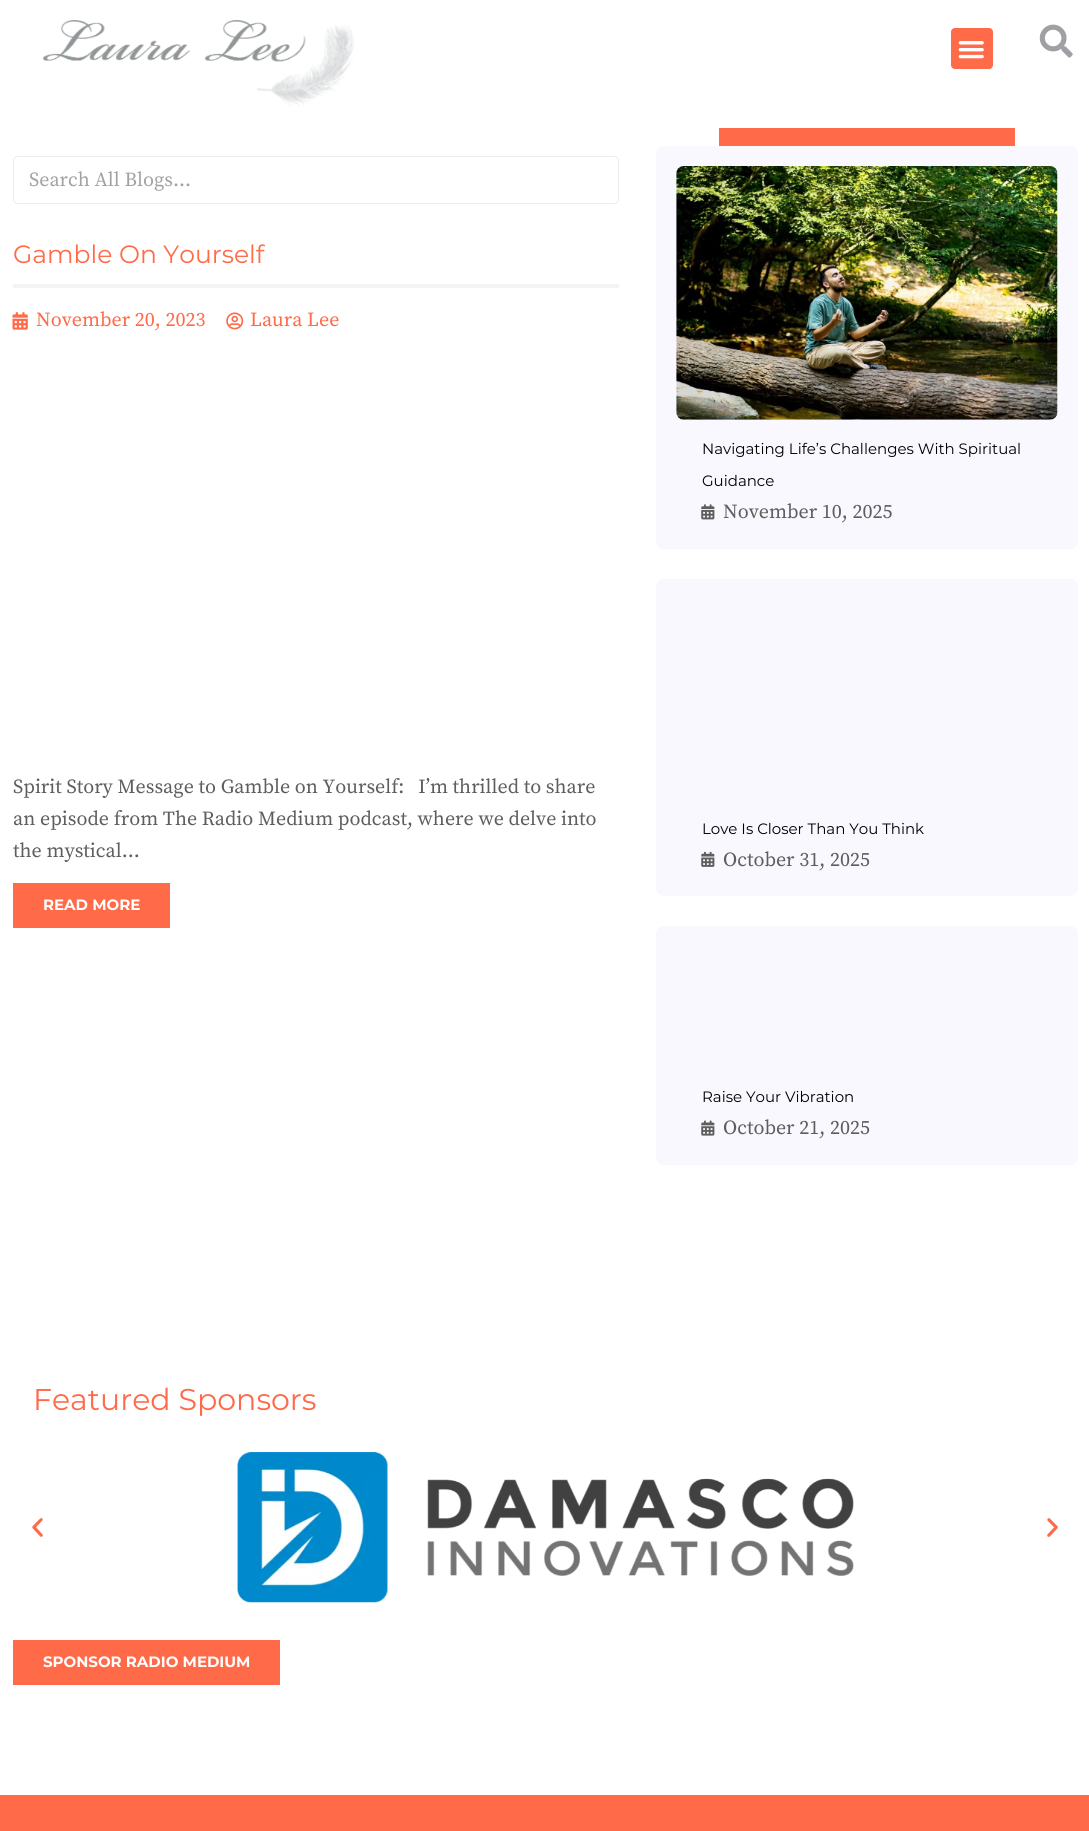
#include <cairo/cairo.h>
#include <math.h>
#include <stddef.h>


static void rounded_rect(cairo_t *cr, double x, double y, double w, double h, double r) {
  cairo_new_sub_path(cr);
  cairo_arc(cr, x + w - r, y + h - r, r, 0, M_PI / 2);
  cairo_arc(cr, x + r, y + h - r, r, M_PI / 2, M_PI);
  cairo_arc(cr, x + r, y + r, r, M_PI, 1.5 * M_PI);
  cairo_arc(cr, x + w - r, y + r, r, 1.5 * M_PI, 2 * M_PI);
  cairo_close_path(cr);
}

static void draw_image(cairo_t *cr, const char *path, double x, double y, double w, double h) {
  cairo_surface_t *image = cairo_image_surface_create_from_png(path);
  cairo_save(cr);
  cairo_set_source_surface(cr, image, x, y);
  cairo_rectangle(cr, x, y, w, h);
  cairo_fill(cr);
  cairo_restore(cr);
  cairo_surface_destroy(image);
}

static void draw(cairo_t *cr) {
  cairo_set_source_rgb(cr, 1, 1, 1);
  cairo_paint(cr);
  draw_image(cr, "images/1.png", 42, 20, 312, 87);
  cairo_set_source_rgb(cr, 1, 106 / 255.0, 72 / 255.0);
  rounded_rect(cr, 951, 28, 42, 41, 4);
  cairo_fill(cr);
  draw_image(cr, "images/2.png", 958, 41, 26, 18);
  draw_image(cr, "images/3.png", 1039, 24, 34, 34);
  rounded_rect(cr, 13.5, 156.5, 605, 47, 4.5);
  cairo_set_source_rgb(cr, 235 / 255.0, 236 / 255.0, 237 / 255.0);
  cairo_set_line_width(cr, 1);
  cairo_stroke(cr);
  cairo_set_source_rgb(cr, 244 / 255.0, 244 / 255.0, 244 / 255.0);
  cairo_rectangle(cr, 13, 284, 606, 4);
  cairo_fill(cr);
  draw_image(cr, "images/4.png", 12, 312, 16, 18);
  draw_image(cr, "images/5.png", 226, 312, 18, 18);
  cairo_set_source_rgb(cr, 1, 106 / 255.0, 72 / 255.0);
  cairo_rectangle(cr, 13, 883, 157, 45);
  cairo_fill(cr);
  cairo_rectangle(cr, 719, 128, 296, 18);
  cairo_fill(cr);
  cairo_set_source_rgb(cr, 248 / 255.0, 248 / 255.0, 254 / 255.0);
  rounded_rect(cr, 656, 146, 422, 403, 8);
  cairo_fill(cr);
  draw_image(cr, "images/6.png", 676, 166, 382, 254);
  draw_image(cr, "images/7.png", 701, 504, 14, 16);
  rounded_rect(cr, 656, 579, 422, 317, 8);
  cairo_fill(cr);
  draw_image(cr, "images/8.png", 701, 851, 14, 16);
  rounded_rect(cr, 656, 926, 422, 239, 8);
  cairo_fill(cr);
  draw_image(cr, "images/9.png", 701, 1120, 14, 16);
  draw_image(cr, "images/10.png", 32, 1518, 11, 19);
  draw_image(cr, "images/11.png", 237, 1452, 617, 151);
  draw_image(cr, "images/12.png", 1047, 1518, 11, 19);
  cairo_set_source_rgb(cr, 1, 106 / 255.0, 72 / 255.0);
  cairo_rectangle(cr, 13, 1640, 267, 45);
  cairo_fill(cr);
  cairo_rectangle(cr, 0, 1795, 1089, 36);
  cairo_fill(cr);
  cairo_select_font_face(cr, "Source Serif Pro", CAIRO_FONT_SLANT_NORMAL, CAIRO_FONT_WEIGHT_NORMAL);
  cairo_set_font_size(cr, 20);
  cairo_set_source_rgb(cr, 161 / 255.0, 162 / 255.0, 164 / 255.0);
  cairo_move_to(cr, 29, 186);
  cairo_show_text(cr, "Search All Blogs...");
  cairo_select_font_face(cr, "Montserrat", CAIRO_FONT_SLANT_NORMAL, CAIRO_FONT_WEIGHT_NORMAL);
  cairo_set_font_size(cr, 25);
  cairo_set_source_rgb(cr, 1, 106 / 255.0, 72 / 255.0);
  cairo_move_to(cr, 13, 263);
  cairo_show_text(cr, "Gamble On Yourself");
  cairo_select_font_face(cr, "Source Serif Pro", CAIRO_FONT_SLANT_NORMAL, CAIRO_FONT_WEIGHT_NORMAL);
  cairo_set_font_size(cr, 20);
  cairo_move_to(cr, 36, 326);
  cairo_show_text(cr, "November 20, 2023");
  cairo_move_to(cr, 250, 326);
  cairo_show_text(cr, "Laura Lee");
  cairo_set_source_rgb(cr, 94 / 255.0, 94 / 255.0, 94 / 255.0);
  cairo_move_to(cr, 13, 793);
  cairo_show_text(cr, "Spirit Story Message to Gamble on Yourself:   I’m thrilled to share");
  cairo_move_to(cr, 13, 825);
  cairo_show_text(cr, "an episode from The Radio Medium podcast, where we delve into");
  cairo_move_to(cr, 13, 857);
  cairo_show_text(cr, "the mystical...");
  cairo_select_font_face(cr, "Montserrat", CAIRO_FONT_SLANT_NORMAL, CAIRO_FONT_WEIGHT_BOLD);
  cairo_set_font_size(cr, 15);
  cairo_set_source_rgb(cr, 1, 1, 1);
  cairo_move_to(cr, 43, 910);
  cairo_show_text(cr, "READ MORE");
  cairo_select_font_face(cr, "Montserrat", CAIRO_FONT_SLANT_NORMAL, CAIRO_FONT_WEIGHT_NORMAL);
  cairo_set_source_rgb(cr, 0, 0, 0);
  cairo_move_to(cr, 702, 454);
  cairo_show_text(cr, "Navigating Life’s Challenges With Spiritual");
  cairo_move_to(cr, 702, 486);
  cairo_show_text(cr, "Guidance");
  cairo_select_font_face(cr, "Source Serif Pro", CAIRO_FONT_SLANT_NORMAL, CAIRO_FONT_WEIGHT_NORMAL);
  cairo_set_font_size(cr, 20);
  cairo_set_source_rgb(cr, 94 / 255.0, 94 / 255.0, 94 / 255.0);
  cairo_move_to(cr, 723, 518);
  cairo_show_text(cr, "November 10, 2025");
  cairo_select_font_face(cr, "Montserrat", CAIRO_FONT_SLANT_NORMAL, CAIRO_FONT_WEIGHT_NORMAL);
  cairo_set_font_size(cr, 15);
  cairo_set_source_rgb(cr, 0, 0, 0);
  cairo_move_to(cr, 702, 834);
  cairo_show_text(cr, "Love Is Closer Than You Think");
  cairo_select_font_face(cr, "Source Serif Pro", CAIRO_FONT_SLANT_NORMAL, CAIRO_FONT_WEIGHT_NORMAL);
  cairo_set_font_size(cr, 20);
  cairo_set_source_rgb(cr, 94 / 255.0, 94 / 255.0, 94 / 255.0);
  cairo_move_to(cr, 723, 866);
  cairo_show_text(cr, "October 31, 2025");
  cairo_select_font_face(cr, "Montserrat", CAIRO_FONT_SLANT_NORMAL, CAIRO_FONT_WEIGHT_NORMAL);
  cairo_set_font_size(cr, 15);
  cairo_set_source_rgb(cr, 0, 0, 0);
  cairo_move_to(cr, 702, 1102);
  cairo_show_text(cr, "Raise Your Vibration");
  cairo_select_font_face(cr, "Source Serif Pro", CAIRO_FONT_SLANT_NORMAL, CAIRO_FONT_WEIGHT_NORMAL);
  cairo_set_font_size(cr, 20);
  cairo_set_source_rgb(cr, 94 / 255.0, 94 / 255.0, 94 / 255.0);
  cairo_move_to(cr, 723, 1134);
  cairo_show_text(cr, "October 21, 2025");
  cairo_select_font_face(cr, "Montserrat", CAIRO_FONT_SLANT_NORMAL, CAIRO_FONT_WEIGHT_NORMAL);
  cairo_set_font_size(cr, 30);
  cairo_set_source_rgb(cr, 1, 106 / 255.0, 72 / 255.0);
  cairo_move_to(cr, 33, 1410);
  cairo_show_text(cr, "Featured Sponsors");
  cairo_select_font_face(cr, "Montserrat", CAIRO_FONT_SLANT_NORMAL, CAIRO_FONT_WEIGHT_BOLD);
  cairo_set_font_size(cr, 15);
  cairo_set_source_rgb(cr, 1, 1, 1);
  cairo_move_to(cr, 43, 1667);
  cairo_show_text(cr, "SPONSOR RADIO MEDIUM");
}

int main(void) {
  cairo_surface_t *surface = cairo_image_surface_create(CAIRO_FORMAT_RGB24, 1089, 1831);
  cairo_t *cr = cairo_create(surface);
  cairo_font_options_t *options = cairo_font_options_create();
  cairo_font_options_set_hint_metrics(options, CAIRO_HINT_METRICS_OFF);
  cairo_font_options_set_hint_style(options, CAIRO_HINT_STYLE_NONE);
  cairo_set_font_options(cr, options);
  cairo_set_miter_limit(cr, 4);
  draw(cr);
  cairo_surface_write_to_png(surface, "out.png");
  cairo_font_options_destroy(options);
  cairo_destroy(cr);
  cairo_surface_destroy(surface);
  return 0;
}
